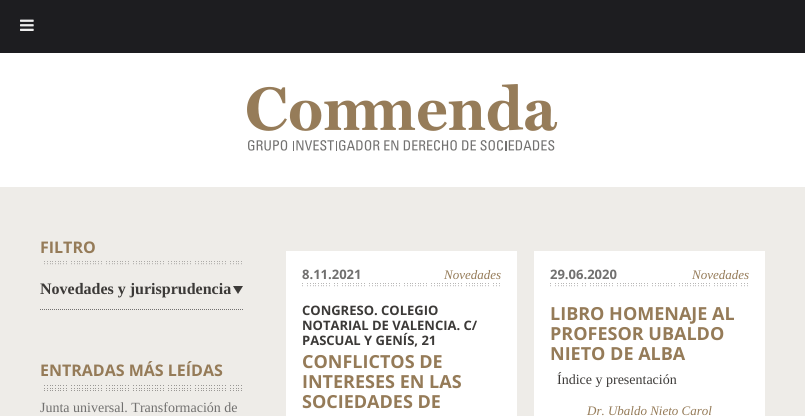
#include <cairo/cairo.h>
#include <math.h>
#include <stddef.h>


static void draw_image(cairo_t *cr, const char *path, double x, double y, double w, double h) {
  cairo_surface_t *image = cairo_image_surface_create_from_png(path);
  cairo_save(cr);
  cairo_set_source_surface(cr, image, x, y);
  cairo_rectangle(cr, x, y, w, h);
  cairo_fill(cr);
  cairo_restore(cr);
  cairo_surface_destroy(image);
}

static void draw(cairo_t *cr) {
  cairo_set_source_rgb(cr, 1, 1, 1);
  cairo_paint(cr);
  cairo_set_source_rgb(cr, 29 / 255.0, 29 / 255.0, 32 / 255.0);
  cairo_rectangle(cr, 0, 0, 805, 53);
  cairo_fill(cr);
  draw_image(cr, "images/1.png", 20, 19, 14, 12);
  draw_image(cr, "images/2.png", 247, 84, 311, 67);
  cairo_set_source_rgb(cr, 238 / 255.0, 236 / 255.0, 232 / 255.0);
  cairo_rectangle(cr, 0, 187, 805, 229);
  cairo_fill(cr);
  draw_image(cr, "images/3.png", 44, 261, 198, 4);
  cairo_new_path(cr);
  cairo_move_to(cr, 40, 309.5);
  cairo_line_to(cr, 243, 309.5);
  cairo_set_source_rgb(cr, 113 / 255.0, 112 / 255.0, 111 / 255.0);
  cairo_set_line_width(cr, 1);
  cairo_set_dash(cr, (double[]){1, 1}, 2, 0);
  cairo_stroke(cr);
  draw_image(cr, "images/4.png", 233, 286, 10, 8);
  draw_image(cr, "images/5.png", 44, 385, 198, 6);
  cairo_set_source_rgb(cr, 1, 1, 1);
  cairo_rectangle(cr, 286, 251, 231, 165);
  cairo_fill(cr);
  draw_image(cr, "images/6.png", 302, 283, 198, 4);
  cairo_rectangle(cr, 534, 251, 231, 165);
  cairo_fill(cr);
  draw_image(cr, "images/6.png", 550, 283, 198, 4);
  cairo_select_font_face(cr, "Open Sans", CAIRO_FONT_SLANT_NORMAL, CAIRO_FONT_WEIGHT_BOLD);
  cairo_set_font_size(cr, 16);
  cairo_set_source_rgb(cr, 149 / 255.0, 123 / 255.0, 88 / 255.0);
  cairo_move_to(cr, 40, 253);
  cairo_show_text(cr, "FILTRO");
  cairo_select_font_face(cr, "Liberation Serif", CAIRO_FONT_SLANT_NORMAL, CAIRO_FONT_WEIGHT_BOLD);
  cairo_set_source_rgb(cr, 60 / 255.0, 58 / 255.0, 56 / 255.0);
  cairo_move_to(cr, 40, 294);
  cairo_show_text(cr, "Novedades y jurisprudencia");
  cairo_select_font_face(cr, "Open Sans", CAIRO_FONT_SLANT_NORMAL, CAIRO_FONT_WEIGHT_BOLD);
  cairo_set_source_rgb(cr, 149 / 255.0, 123 / 255.0, 88 / 255.0);
  cairo_move_to(cr, 40, 376);
  cairo_show_text(cr, "ENTRADAS MÁS LEÍDAS");
  cairo_select_font_face(cr, "Liberation Serif", CAIRO_FONT_SLANT_NORMAL, CAIRO_FONT_WEIGHT_NORMAL);
  cairo_set_font_size(cr, 14);
  cairo_set_source_rgb(cr, 113 / 255.0, 112 / 255.0, 111 / 255.0);
  cairo_move_to(cr, 40, 412);
  cairo_show_text(cr, "Junta universal. Transformación de");
  cairo_select_font_face(cr, "Open Sans", CAIRO_FONT_SLANT_NORMAL, CAIRO_FONT_WEIGHT_BOLD);
  cairo_set_font_size(cr, 13);
  cairo_move_to(cr, 302, 279);
  cairo_show_text(cr, "8.11.2021");
  cairo_select_font_face(cr, "Liberation Serif", CAIRO_FONT_SLANT_ITALIC, CAIRO_FONT_WEIGHT_NORMAL);
  cairo_set_source_rgb(cr, 149 / 255.0, 123 / 255.0, 88 / 255.0);
  cairo_move_to(cr, 444, 279);
  cairo_show_text(cr, "Novedades");
  cairo_select_font_face(cr, "Open Sans", CAIRO_FONT_SLANT_NORMAL, CAIRO_FONT_WEIGHT_BOLD);
  cairo_set_source_rgb(cr, 60 / 255.0, 58 / 255.0, 56 / 255.0);
  cairo_move_to(cr, 302, 315);
  cairo_show_text(cr, "CONGRESO. COLEGIO");
  cairo_move_to(cr, 302, 330);
  cairo_show_text(cr, "NOTARIAL DE VALENCIA. C/");
  cairo_move_to(cr, 302, 345);
  cairo_show_text(cr, "PASCUAL Y GENÍS, 21");
  cairo_set_font_size(cr, 18);
  cairo_set_source_rgb(cr, 149 / 255.0, 123 / 255.0, 88 / 255.0);
  cairo_move_to(cr, 302, 368);
  cairo_show_text(cr, "CONFLICTOS DE");
  cairo_move_to(cr, 302, 388);
  cairo_show_text(cr, "INTERESES EN LAS");
  cairo_move_to(cr, 302, 408);
  cairo_show_text(cr, "SOCIEDADES DE");
  cairo_set_font_size(cr, 13);
  cairo_set_source_rgb(cr, 113 / 255.0, 112 / 255.0, 111 / 255.0);
  cairo_move_to(cr, 550, 279);
  cairo_show_text(cr, "29.06.2020");
  cairo_select_font_face(cr, "Liberation Serif", CAIRO_FONT_SLANT_ITALIC, CAIRO_FONT_WEIGHT_NORMAL);
  cairo_set_source_rgb(cr, 149 / 255.0, 123 / 255.0, 88 / 255.0);
  cairo_move_to(cr, 692, 279);
  cairo_show_text(cr, "Novedades");
  cairo_select_font_face(cr, "Open Sans", CAIRO_FONT_SLANT_NORMAL, CAIRO_FONT_WEIGHT_BOLD);
  cairo_set_font_size(cr, 18);
  cairo_move_to(cr, 550, 320);
  cairo_show_text(cr, "LIBRO HOMENAJE AL");
  cairo_move_to(cr, 550, 340);
  cairo_show_text(cr, "PROFESOR UBALDO");
  cairo_move_to(cr, 550, 360);
  cairo_show_text(cr, "NIETO DE ALBA");
  cairo_select_font_face(cr, "Liberation Serif", CAIRO_FONT_SLANT_NORMAL, CAIRO_FONT_WEIGHT_NORMAL);
  cairo_set_font_size(cr, 14);
  cairo_set_source_rgb(cr, 60 / 255.0, 58 / 255.0, 56 / 255.0);
  cairo_move_to(cr, 557, 384);
  cairo_show_text(cr, "Índice y presentación");
  cairo_select_font_face(cr, "Liberation Serif", CAIRO_FONT_SLANT_ITALIC, CAIRO_FONT_WEIGHT_NORMAL);
  cairo_set_font_size(cr, 13);
  cairo_set_source_rgb(cr, 149 / 255.0, 123 / 255.0, 88 / 255.0);
  cairo_move_to(cr, 587, 415);
  cairo_show_text(cr, "Dr. Ubaldo Nieto Carol");
}

int main(void) {
  cairo_surface_t *surface = cairo_image_surface_create(CAIRO_FORMAT_RGB24, 805, 416);
  cairo_t *cr = cairo_create(surface);
  cairo_font_options_t *options = cairo_font_options_create();
  cairo_font_options_set_hint_metrics(options, CAIRO_HINT_METRICS_OFF);
  cairo_font_options_set_hint_style(options, CAIRO_HINT_STYLE_NONE);
  cairo_set_font_options(cr, options);
  cairo_set_miter_limit(cr, 4);
  draw(cr);
  cairo_surface_write_to_png(surface, "out.png");
  cairo_font_options_destroy(options);
  cairo_destroy(cr);
  cairo_surface_destroy(surface);
  return 0;
}
